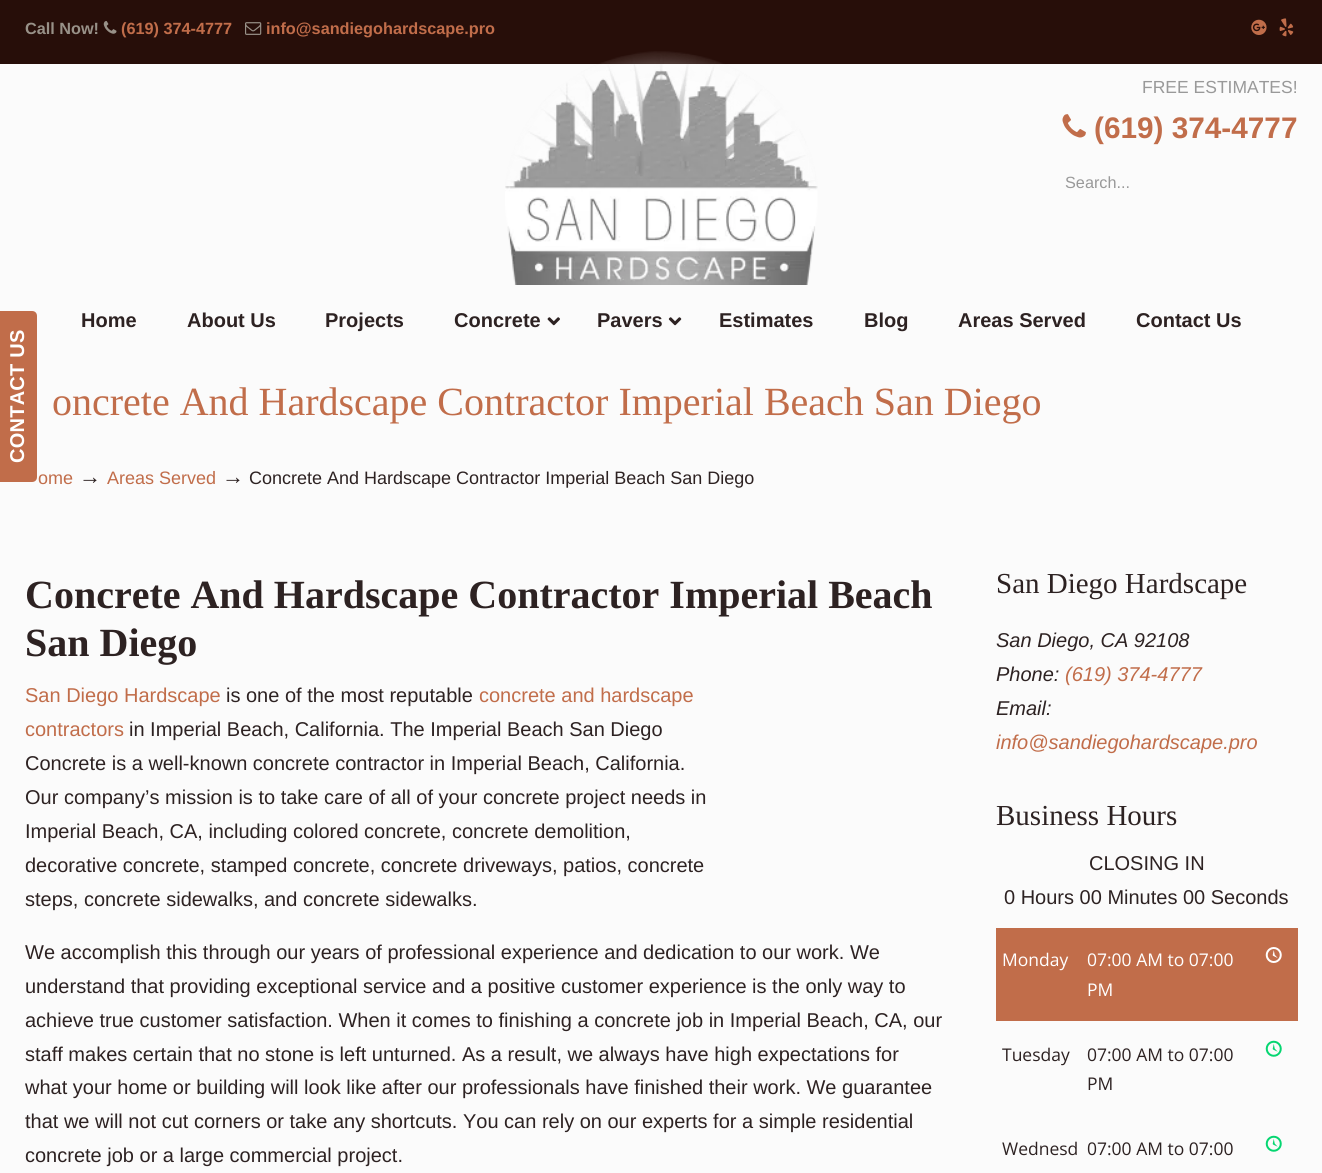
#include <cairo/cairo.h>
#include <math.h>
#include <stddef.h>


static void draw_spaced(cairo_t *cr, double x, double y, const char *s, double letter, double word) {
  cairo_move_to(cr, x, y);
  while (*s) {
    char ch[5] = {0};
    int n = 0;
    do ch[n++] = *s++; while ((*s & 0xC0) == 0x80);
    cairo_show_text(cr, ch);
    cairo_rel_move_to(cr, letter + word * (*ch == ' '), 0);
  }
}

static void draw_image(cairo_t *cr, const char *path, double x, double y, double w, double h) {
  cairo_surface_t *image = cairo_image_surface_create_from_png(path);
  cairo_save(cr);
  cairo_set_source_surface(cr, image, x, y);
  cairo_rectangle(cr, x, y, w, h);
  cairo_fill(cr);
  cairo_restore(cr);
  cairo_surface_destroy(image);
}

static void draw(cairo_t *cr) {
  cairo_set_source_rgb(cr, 251 / 255.0, 251 / 255.0, 251 / 255.0);
  cairo_paint(cr);
  cairo_set_source_rgb(cr, 193 / 255.0, 109 / 255.0, 74 / 255.0);
  cairo_new_path(cr);
  cairo_move_to(cr, -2, 482);
  cairo_line_to(cr, -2, 311);
  cairo_line_to(cr, 32, 311);
  cairo_curve_to(cr, 35, 311, 37, 313, 37, 316);
  cairo_line_to(cr, 37, 477);
  cairo_curve_to(cr, 37, 480, 35, 482, 32, 482);
  cairo_close_path(cr);
  cairo_fill(cr);
  cairo_set_source_rgb(cr, 39 / 255.0, 14 / 255.0, 9 / 255.0);
  cairo_rectangle(cr, 0, 0, 1322, 64);
  cairo_fill(cr);
  draw_image(cr, "images/1.png", 103, 21, 14, 13);
  draw_image(cr, "images/2.png", 245, 22, 17, 13);
  draw_image(cr, "images/3.png", 1251, 19, 16, 16);
  draw_image(cr, "images/4.png", 1279, 18, 15, 19);
  draw_image(cr, "images/5.png", 505, 51, 313, 234);
  draw_image(cr, "images/6.png", 1062, 114, 24, 24);
  draw_image(cr, "images/7.png", 547, 317, 13, 9);
  draw_image(cr, "images/8.png", 668, 317, 14, 9);
  cairo_set_source_rgb(cr, 193 / 255.0, 109 / 255.0, 74 / 255.0);
  cairo_rectangle(cr, 996, 928, 302, 93);
  cairo_fill(cr);
  draw_image(cr, "images/9.png", 1265, 947, 17, 16);
  draw_image(cr, "images/10.png", 1265, 1040, 17, 17);
  draw_image(cr, "images/10.png", 1265, 1135, 17, 17);
  cairo_select_font_face(cr, "Liberation Sans", CAIRO_FONT_SLANT_NORMAL, CAIRO_FONT_WEIGHT_BOLD);
  cairo_set_font_size(cr, 20);
  cairo_set_source_rgb(cr, 1, 1, 1);
  cairo_save(cr);
  cairo_translate(cr, 24, 463);
  cairo_rotate(cr, -90 * M_PI / 180);
  draw_spaced(cr, 0, 0, "CONTACT US", 0.25, 0);
  cairo_restore(cr);
  cairo_set_font_size(cr, 16.25);
  cairo_set_source_rgb(cr, 152 / 255.0, 145 / 255.0, 136 / 255.0);
  cairo_move_to(cr, 25, 34);
  cairo_show_text(cr, "Call Now!");
  cairo_set_source_rgb(cr, 193 / 255.0, 109 / 255.0, 74 / 255.0);
  cairo_move_to(cr, 121, 34);
  cairo_show_text(cr, "(619) 374-4777");
  cairo_move_to(cr, 266, 34);
  cairo_show_text(cr, "info@sandiegohardscape.pro");
  cairo_select_font_face(cr, "Liberation Sans", CAIRO_FONT_SLANT_NORMAL, CAIRO_FONT_WEIGHT_NORMAL);
  cairo_set_font_size(cr, 17.5);
  cairo_set_source_rgb(cr, 153 / 255.0, 153 / 255.0, 153 / 255.0);
  cairo_move_to(cr, 1142, 93);
  cairo_show_text(cr, "FREE ESTIMATES!");
  cairo_select_font_face(cr, "Liberation Sans", CAIRO_FONT_SLANT_NORMAL, CAIRO_FONT_WEIGHT_BOLD);
  cairo_set_font_size(cr, 29.75);
  cairo_set_source_rgb(cr, 193 / 255.0, 109 / 255.0, 74 / 255.0);
  cairo_move_to(cr, 1094, 138);
  cairo_show_text(cr, "(619) 374-4777");
  cairo_select_font_face(cr, "Liberation Sans", CAIRO_FONT_SLANT_NORMAL, CAIRO_FONT_WEIGHT_NORMAL);
  cairo_set_font_size(cr, 16.25);
  cairo_set_source_rgb(cr, 153 / 255.0, 153 / 255.0, 153 / 255.0);
  cairo_move_to(cr, 1065, 188);
  cairo_show_text(cr, "Search...");
  cairo_select_font_face(cr, "Liberation Sans", CAIRO_FONT_SLANT_NORMAL, CAIRO_FONT_WEIGHT_BOLD);
  cairo_set_font_size(cr, 20);
  cairo_set_source_rgb(cr, 45 / 255.0, 34 / 255.0, 34 / 255.0);
  cairo_move_to(cr, 81, 327);
  cairo_show_text(cr, "Home");
  cairo_move_to(cr, 187, 327);
  cairo_show_text(cr, "About Us");
  cairo_move_to(cr, 325, 327);
  cairo_show_text(cr, "Projects");
  cairo_move_to(cr, 454, 327);
  cairo_show_text(cr, "Concrete");
  cairo_move_to(cr, 597, 327);
  cairo_show_text(cr, "Pavers");
  cairo_move_to(cr, 719, 327);
  cairo_show_text(cr, "Estimates");
  cairo_move_to(cr, 864, 327);
  cairo_show_text(cr, "Blog");
  cairo_move_to(cr, 958, 327);
  cairo_show_text(cr, "Areas Served");
  cairo_move_to(cr, 1136, 327);
  cairo_show_text(cr, "Contact Us");
  cairo_select_font_face(cr, "Liberation Serif", CAIRO_FONT_SLANT_NORMAL, CAIRO_FONT_WEIGHT_NORMAL);
  cairo_set_font_size(cr, 40);
  cairo_set_source_rgb(cr, 193 / 255.0, 109 / 255.0, 74 / 255.0);
  cairo_move_to(cr, 52, 415);
  cairo_show_text(cr, "oncrete And Hardscape Contractor Imperial Beach San Diego");
  cairo_select_font_face(cr, "Liberation Sans", CAIRO_FONT_SLANT_NORMAL, CAIRO_FONT_WEIGHT_NORMAL);
  cairo_set_font_size(cr, 18);
  cairo_move_to(cr, 38, 484);
  cairo_show_text(cr, "ome");
  cairo_set_font_size(cr, 22);
  cairo_set_source_rgb(cr, 45 / 255.0, 34 / 255.0, 34 / 255.0);
  cairo_move_to(cr, 79, 484);
  cairo_show_text(cr, "→");
  cairo_set_font_size(cr, 18);
  cairo_set_source_rgb(cr, 193 / 255.0, 109 / 255.0, 74 / 255.0);
  cairo_move_to(cr, 107, 484);
  cairo_show_text(cr, "Areas Served");
  cairo_set_font_size(cr, 22);
  cairo_set_source_rgb(cr, 45 / 255.0, 34 / 255.0, 34 / 255.0);
  cairo_move_to(cr, 222, 484);
  cairo_show_text(cr, "→");
  cairo_set_font_size(cr, 18);
  cairo_move_to(cr, 249, 484);
  cairo_show_text(cr, "Concrete And Hardscape Contractor Imperial Beach San Diego");
  cairo_select_font_face(cr, "Liberation Serif", CAIRO_FONT_SLANT_NORMAL, CAIRO_FONT_WEIGHT_BOLD);
  cairo_set_font_size(cr, 40);
  cairo_move_to(cr, 25, 608);
  cairo_show_text(cr, "Concrete And Hardscape Contractor Imperial Beach");
  cairo_move_to(cr, 25, 656);
  cairo_show_text(cr, "San Diego");
  cairo_select_font_face(cr, "Liberation Sans", CAIRO_FONT_SLANT_NORMAL, CAIRO_FONT_WEIGHT_NORMAL);
  cairo_set_font_size(cr, 20);
  cairo_set_source_rgb(cr, 193 / 255.0, 109 / 255.0, 74 / 255.0);
  cairo_move_to(cr, 25, 702);
  cairo_show_text(cr, "San Diego Hardscape");
  cairo_set_source_rgb(cr, 45 / 255.0, 34 / 255.0, 34 / 255.0);
  cairo_move_to(cr, 226, 702);
  cairo_show_text(cr, "is one of the most reputable");
  cairo_set_source_rgb(cr, 193 / 255.0, 109 / 255.0, 74 / 255.0);
  cairo_move_to(cr, 479, 702);
  cairo_show_text(cr, "concrete and hardscape");
  cairo_move_to(cr, 25, 736);
  cairo_show_text(cr, "contractors");
  cairo_set_source_rgb(cr, 45 / 255.0, 34 / 255.0, 34 / 255.0);
  cairo_move_to(cr, 129, 736);
  cairo_show_text(cr, "in Imperial Beach, California. The Imperial Beach San Diego");
  cairo_move_to(cr, 25, 770);
  cairo_show_text(cr, "Concrete is a well-known concrete contractor in Imperial Beach, California.");
  cairo_move_to(cr, 25, 804);
  cairo_show_text(cr, "Our company’s mission is to take care of all of your concrete project needs in");
  cairo_move_to(cr, 25, 838);
  cairo_show_text(cr, "Imperial Beach, CA, including colored concrete, concrete demolition,");
  cairo_move_to(cr, 25, 872);
  cairo_show_text(cr, "decorative concrete, stamped concrete, concrete driveways, patios, concrete");
  cairo_move_to(cr, 25, 906);
  cairo_show_text(cr, "steps, concrete sidewalks, and concrete sidewalks.");
  cairo_move_to(cr, 25, 959);
  cairo_show_text(cr, "We accomplish this through our years of professional experience and dedication to our work. We");
  cairo_move_to(cr, 25, 993);
  cairo_show_text(cr, "understand that providing exceptional service and a positive customer experience is the only way to");
  cairo_move_to(cr, 25, 1027);
  cairo_show_text(cr, "achieve true customer satisfaction. When it comes to finishing a concrete job in Imperial Beach, CA, our");
  cairo_move_to(cr, 25, 1061);
  cairo_show_text(cr, "staff makes certain that no stone is left unturned. As a result, we always have high expectations for");
  cairo_move_to(cr, 25, 1094);
  cairo_show_text(cr, "what your home or building will look like after our professionals have finished their work. We guarantee");
  cairo_move_to(cr, 25, 1128);
  cairo_show_text(cr, "that we will not cut corners or take any shortcuts. You can rely on our experts for a simple residential");
  cairo_move_to(cr, 25, 1162);
  cairo_show_text(cr, "concrete job or a large commercial project.");
  cairo_select_font_face(cr, "Liberation Serif", CAIRO_FONT_SLANT_NORMAL, CAIRO_FONT_WEIGHT_NORMAL);
  cairo_set_font_size(cr, 29);
  cairo_move_to(cr, 996, 593);
  cairo_show_text(cr, "San Diego Hardscape");
  cairo_select_font_face(cr, "Liberation Sans", CAIRO_FONT_SLANT_ITALIC, CAIRO_FONT_WEIGHT_NORMAL);
  cairo_set_font_size(cr, 20);
  cairo_move_to(cr, 996, 647);
  cairo_show_text(cr, "San Diego, CA 92108");
  cairo_move_to(cr, 996, 681);
  cairo_show_text(cr, "Phone:");
  cairo_set_source_rgb(cr, 193 / 255.0, 109 / 255.0, 74 / 255.0);
  cairo_move_to(cr, 1065, 681);
  cairo_show_text(cr, "(619) 374-4777");
  cairo_set_source_rgb(cr, 45 / 255.0, 34 / 255.0, 34 / 255.0);
  cairo_move_to(cr, 996, 715);
  cairo_show_text(cr, "Email:");
  cairo_set_source_rgb(cr, 193 / 255.0, 109 / 255.0, 74 / 255.0);
  cairo_move_to(cr, 996, 749);
  cairo_show_text(cr, "info@sandiegohardscape.pro");
  cairo_select_font_face(cr, "Liberation Serif", CAIRO_FONT_SLANT_NORMAL, CAIRO_FONT_WEIGHT_NORMAL);
  cairo_set_font_size(cr, 29);
  cairo_set_source_rgb(cr, 45 / 255.0, 34 / 255.0, 34 / 255.0);
  cairo_move_to(cr, 996, 825);
  cairo_show_text(cr, "Business Hours");
  cairo_select_font_face(cr, "Liberation Sans", CAIRO_FONT_SLANT_NORMAL, CAIRO_FONT_WEIGHT_NORMAL);
  cairo_set_font_size(cr, 20);
  cairo_move_to(cr, 1089, 870);
  cairo_show_text(cr, "CLOSING IN");
  cairo_move_to(cr, 1004, 904);
  cairo_show_text(cr, "0 Hours 00 Minutes 00 Seconds");
  cairo_select_font_face(cr, "Open Sans", CAIRO_FONT_SLANT_NORMAL, CAIRO_FONT_WEIGHT_NORMAL);
  cairo_set_font_size(cr, 17.5);
  cairo_set_source_rgb(cr, 1, 1, 1);
  cairo_move_to(cr, 1002, 966);
  cairo_show_text(cr, "Monday");
  cairo_move_to(cr, 1087, 966);
  cairo_show_text(cr, "07:00 AM to 07:00");
  cairo_move_to(cr, 1087, 996);
  cairo_show_text(cr, "PM");
  cairo_set_source_rgb(cr, 45 / 255.0, 34 / 255.0, 34 / 255.0);
  cairo_move_to(cr, 1002, 1061);
  cairo_show_text(cr, "Tuesday");
  cairo_move_to(cr, 1087, 1061);
  cairo_show_text(cr, "07:00 AM to 07:00");
  cairo_move_to(cr, 1087, 1090);
  cairo_show_text(cr, "PM");
  cairo_move_to(cr, 1002, 1155);
  cairo_show_text(cr, "Wednesd");
  cairo_move_to(cr, 1087, 1155);
  cairo_show_text(cr, "07:00 AM to 07:00");
}

int main(void) {
  cairo_surface_t *surface = cairo_image_surface_create(CAIRO_FORMAT_RGB24, 1322, 1173);
  cairo_t *cr = cairo_create(surface);
  cairo_font_options_t *options = cairo_font_options_create();
  cairo_font_options_set_hint_metrics(options, CAIRO_HINT_METRICS_OFF);
  cairo_font_options_set_hint_style(options, CAIRO_HINT_STYLE_NONE);
  cairo_set_font_options(cr, options);
  cairo_set_miter_limit(cr, 4);
  draw(cr);
  cairo_surface_write_to_png(surface, "out.png");
  cairo_font_options_destroy(options);
  cairo_destroy(cr);
  cairo_surface_destroy(surface);
  return 0;
}
